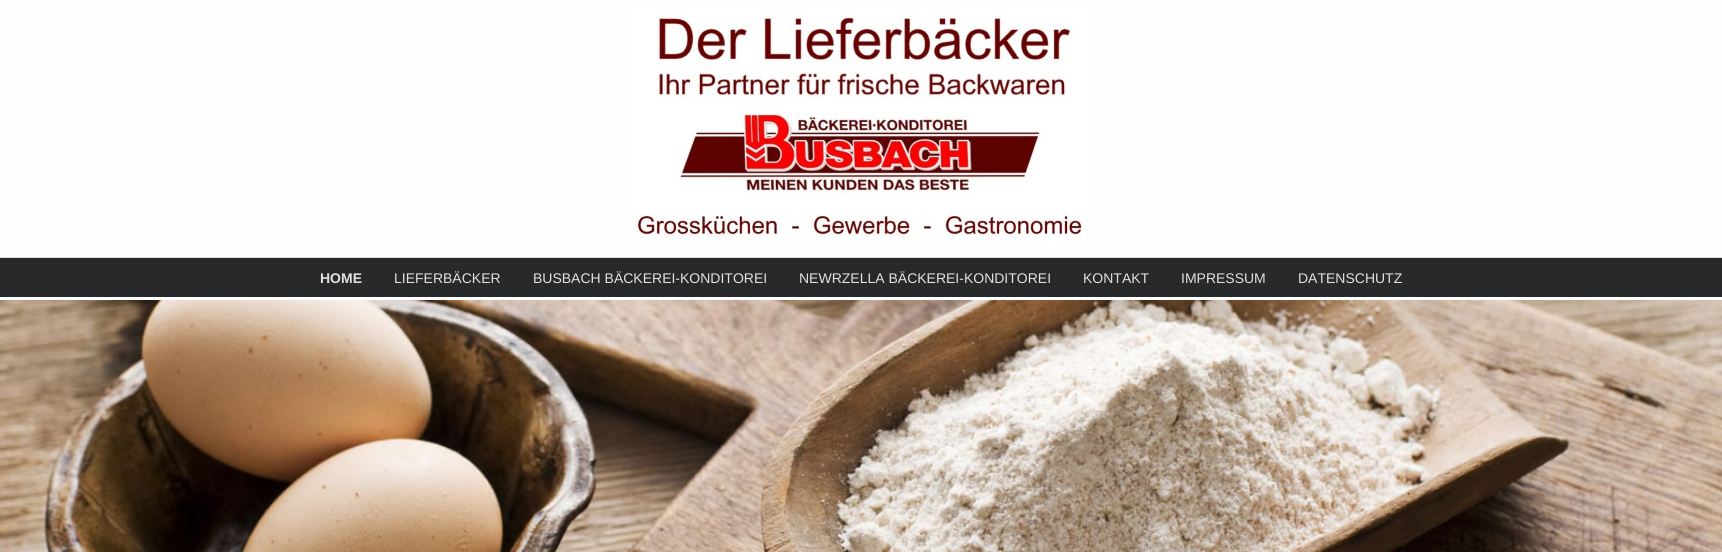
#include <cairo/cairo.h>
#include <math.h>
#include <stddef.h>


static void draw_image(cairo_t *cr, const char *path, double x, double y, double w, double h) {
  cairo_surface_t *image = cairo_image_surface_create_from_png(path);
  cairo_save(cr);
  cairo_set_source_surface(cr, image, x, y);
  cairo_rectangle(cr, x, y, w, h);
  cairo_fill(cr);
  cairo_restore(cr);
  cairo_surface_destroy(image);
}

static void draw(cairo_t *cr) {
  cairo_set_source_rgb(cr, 40 / 255.0, 41 / 255.0, 43 / 255.0);
  cairo_paint(cr);
  cairo_set_source_rgb(cr, 254 / 255.0, 254 / 255.0, 254 / 255.0);
  cairo_rectangle(cr, 0, 0, 1722, 257);
  cairo_fill(cr);
  draw_image(cr, "images/1.png", 632, 5, 455, 240);
  cairo_set_source_rgb(cr, 225 / 255.0, 225 / 255.0, 226 / 255.0);
  cairo_rectangle(cr, 0, 257, 1722, 1);
  cairo_fill(cr);
  cairo_set_source_rgb(cr, 1, 1, 1);
  cairo_rectangle(cr, 0, 297, 1722, 3);
  cairo_fill(cr);
  draw_image(cr, "images/2.png", 0, 300, 1722, 252);
  cairo_select_font_face(cr, "Liberation Sans", CAIRO_FONT_SLANT_NORMAL, CAIRO_FONT_WEIGHT_BOLD);
  cairo_set_font_size(cr, 14);
  cairo_set_source_rgb(cr, 225 / 255.0, 225 / 255.0, 226 / 255.0);
  cairo_move_to(cr, 320, 283);
  cairo_show_text(cr, "HOME");
  cairo_select_font_face(cr, "Liberation Sans", CAIRO_FONT_SLANT_NORMAL, CAIRO_FONT_WEIGHT_NORMAL);
  cairo_move_to(cr, 394, 283);
  cairo_show_text(cr, "LIEFERBÄCKER");
  cairo_move_to(cr, 533, 283);
  cairo_show_text(cr, "BUSBACH BÄCKEREI-KONDITOREI");
  cairo_move_to(cr, 799, 283);
  cairo_show_text(cr, "NEWRZELLA BÄCKEREI-KONDITOREI");
  cairo_move_to(cr, 1083, 283);
  cairo_show_text(cr, "KONTAKT");
  cairo_move_to(cr, 1181, 283);
  cairo_show_text(cr, "IMPRESSUM");
  cairo_move_to(cr, 1298, 283);
  cairo_show_text(cr, "DATENSCHUTZ");
}

int main(void) {
  cairo_surface_t *surface = cairo_image_surface_create(CAIRO_FORMAT_RGB24, 1722, 552);
  cairo_t *cr = cairo_create(surface);
  cairo_font_options_t *options = cairo_font_options_create();
  cairo_font_options_set_hint_metrics(options, CAIRO_HINT_METRICS_OFF);
  cairo_font_options_set_hint_style(options, CAIRO_HINT_STYLE_NONE);
  cairo_set_font_options(cr, options);
  cairo_set_miter_limit(cr, 4);
  draw(cr);
  cairo_surface_write_to_png(surface, "out.png");
  cairo_font_options_destroy(options);
  cairo_destroy(cr);
  cairo_surface_destroy(surface);
  return 0;
}
